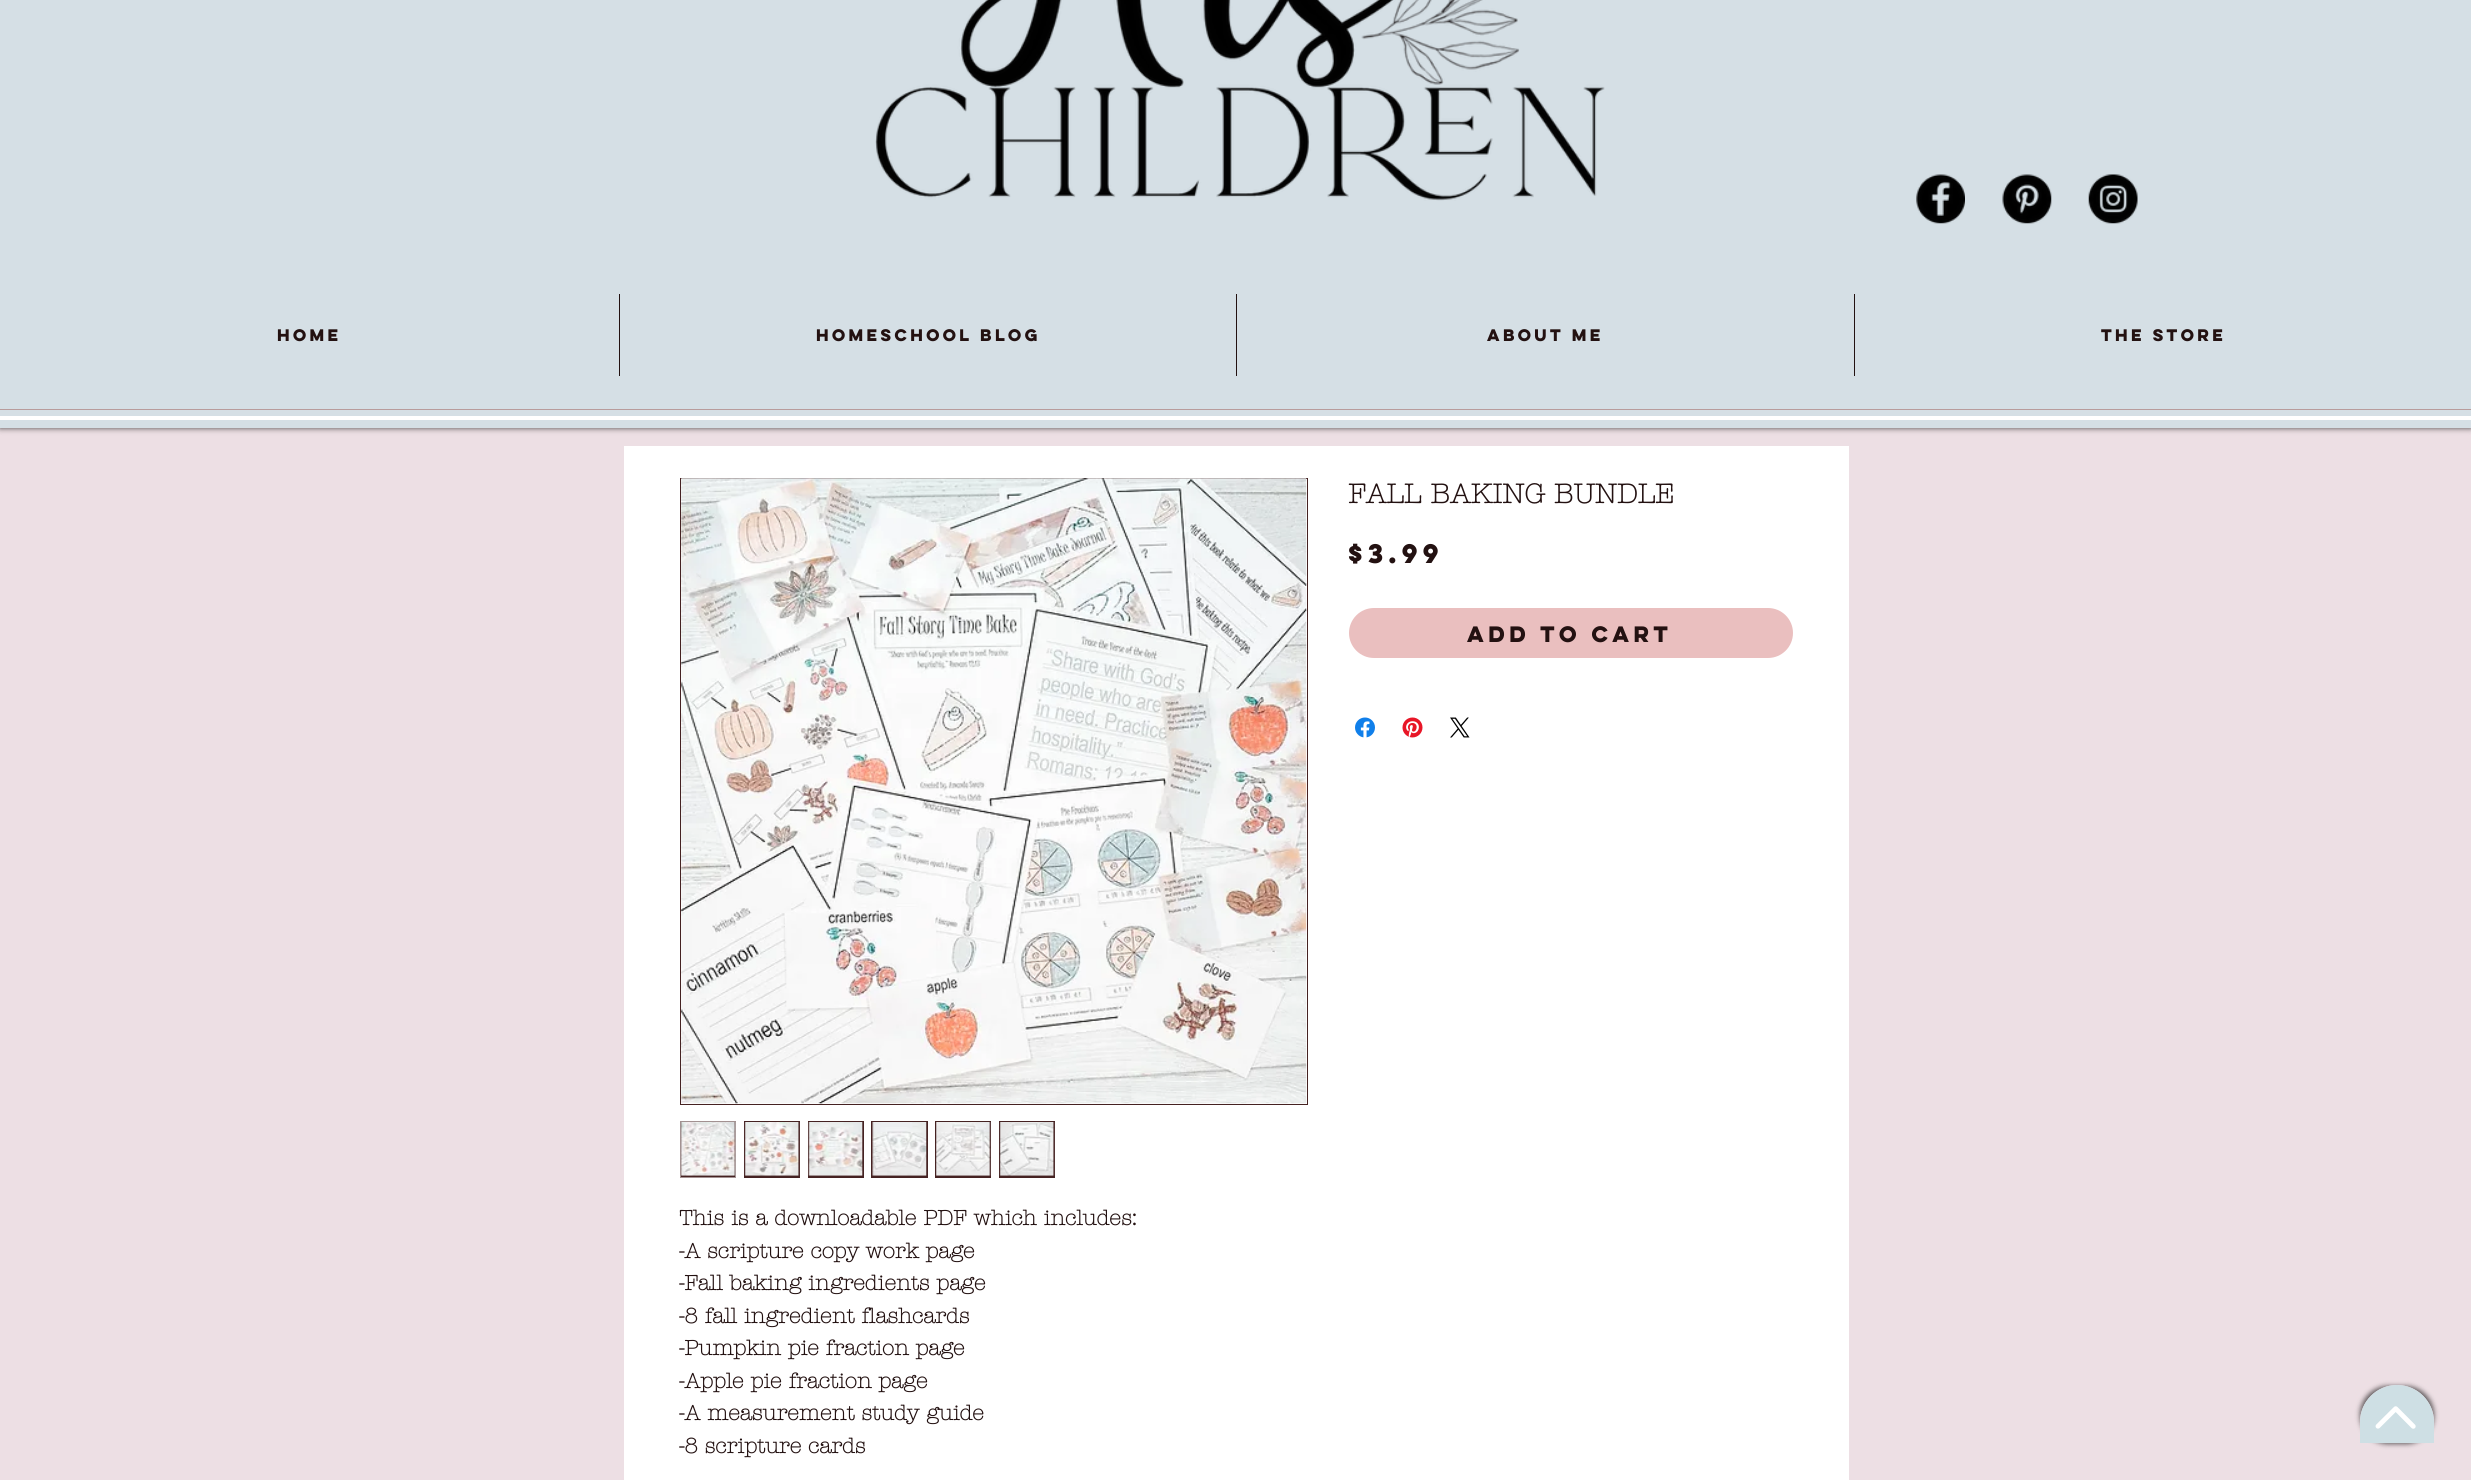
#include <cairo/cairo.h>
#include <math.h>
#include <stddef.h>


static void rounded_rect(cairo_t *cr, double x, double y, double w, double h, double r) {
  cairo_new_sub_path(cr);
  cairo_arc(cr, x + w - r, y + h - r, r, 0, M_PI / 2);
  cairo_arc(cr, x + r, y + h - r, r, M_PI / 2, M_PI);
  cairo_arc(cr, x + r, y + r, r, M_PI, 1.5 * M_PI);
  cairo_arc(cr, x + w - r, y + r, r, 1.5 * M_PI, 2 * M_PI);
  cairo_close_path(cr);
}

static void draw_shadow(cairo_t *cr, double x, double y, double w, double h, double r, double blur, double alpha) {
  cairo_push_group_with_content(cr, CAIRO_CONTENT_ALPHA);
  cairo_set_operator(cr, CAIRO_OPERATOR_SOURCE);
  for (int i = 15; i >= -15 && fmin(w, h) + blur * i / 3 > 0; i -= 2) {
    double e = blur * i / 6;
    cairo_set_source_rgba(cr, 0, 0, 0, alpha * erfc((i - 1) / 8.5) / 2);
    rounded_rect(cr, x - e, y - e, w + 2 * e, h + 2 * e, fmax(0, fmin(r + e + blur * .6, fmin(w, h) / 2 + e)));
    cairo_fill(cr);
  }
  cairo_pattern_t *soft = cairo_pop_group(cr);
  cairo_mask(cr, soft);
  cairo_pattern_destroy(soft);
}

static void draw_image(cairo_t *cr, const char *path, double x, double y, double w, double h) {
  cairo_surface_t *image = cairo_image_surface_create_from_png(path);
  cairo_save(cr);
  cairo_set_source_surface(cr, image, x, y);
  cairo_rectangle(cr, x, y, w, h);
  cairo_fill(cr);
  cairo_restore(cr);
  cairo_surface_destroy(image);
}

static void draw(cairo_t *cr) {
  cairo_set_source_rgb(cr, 237 / 255.0, 223 / 255.0, 228 / 255.0);
  cairo_paint(cr);
  cairo_save(cr);
  cairo_set_fill_rule(cr, CAIRO_FILL_RULE_EVEN_ODD);
  cairo_new_path(cr);
  cairo_move_to(cr, 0, 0);
  cairo_line_to(cr, 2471, 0);
  cairo_line_to(cr, 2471, 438);
  cairo_line_to(cr, 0, 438);
  cairo_close_path(cr);
  cairo_move_to(cr, 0, -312);
  cairo_line_to(cr, 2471, -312);
  cairo_line_to(cr, 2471, 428);
  cairo_line_to(cr, 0, 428);
  cairo_close_path(cr);
  cairo_clip(cr);
  cairo_set_source_rgb(cr, 0, 0, 0);
  draw_shadow(cr, 0, -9, 2471, 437, 0, 3, 0.7);
  cairo_restore(cr);
  cairo_set_source_rgba(cr, 193 / 255.0, 224 / 255.0, 229 / 255.0, 0.54);
  cairo_rectangle(cr, 0, 0, 2471, 428);
  cairo_fill(cr);
  cairo_set_source_rgb(cr, 1, 1, 1);
  cairo_rectangle(cr, 0, 416, 2471, 4);
  cairo_fill(cr);
  cairo_set_source_rgb(cr, 184 / 255.0, 156 / 255.0, 156 / 255.0);
  cairo_rectangle(cr, 0, 409, 2471, 1);
  cairo_fill(cr);
  draw_image(cr, "images/1.png", 875, 0, 730, 201);
  draw_image(cr, "images/2.png", 1916, 174, 49, 50);
  draw_image(cr, "images/3.png", 2002, 174, 50, 50);
  draw_image(cr, "images/4.png", 2088, 174, 50, 50);
  cairo_set_source_rgb(cr, 35 / 255.0, 17 / 255.0, 17 / 255.0);
  cairo_rectangle(cr, 619, 294, 1, 82);
  cairo_fill(cr);
  cairo_rectangle(cr, 1236, 294, 1, 82);
  cairo_fill(cr);
  cairo_rectangle(cr, 1854, 294, 1, 82);
  cairo_fill(cr);
  cairo_set_source_rgb(cr, 1, 1, 1);
  cairo_rectangle(cr, 624, 446, 1225, 1034);
  cairo_fill(cr);
  cairo_set_source_rgb(cr, 234 / 255.0, 191 / 255.0, 191 / 255.0);
  rounded_rect(cr, 1349, 608, 444, 50, 25);
  cairo_fill(cr);
  draw_image(cr, "images/5.png", 1355, 717, 20, 21);
  draw_image(cr, "images/6.png", 1402, 717, 21, 21);
  draw_image(cr, "images/7.png", 1450, 717, 20, 21);
  cairo_rectangle(cr, 680.5, 478.5, 627, 626);
  cairo_set_source_rgb(cr, 69 / 255.0, 34 / 255.0, 34 / 255.0);
  cairo_set_line_width(cr, 1);
  cairo_stroke(cr);
  draw_image(cr, "images/8.png", 681, 478, 626, 626);
  cairo_rectangle(cr, 680.5, 1121.5, 55, 56);
  cairo_fill_preserve(cr);
  cairo_set_source_rgb(cr, 162 / 255.0, 145 / 255.0, 145 / 255.0);
  cairo_stroke(cr);
  draw_image(cr, "images/9.png", 681, 1122, 55, 54);
  cairo_set_source_rgb(cr, 69 / 255.0, 34 / 255.0, 34 / 255.0);
  cairo_rectangle(cr, 744, 1121, 56, 57);
  cairo_fill(cr);
  draw_image(cr, "images/10.png", 744, 1122, 56, 54);
  cairo_rectangle(cr, 808, 1121, 56, 57);
  cairo_fill(cr);
  draw_image(cr, "images/11.png", 808, 1122, 55, 54);
  cairo_rectangle(cr, 871, 1121, 57, 57);
  cairo_fill(cr);
  draw_image(cr, "images/12.png", 872, 1122, 55, 54);
  cairo_rectangle(cr, 935, 1121, 56, 57);
  cairo_fill(cr);
  draw_image(cr, "images/13.png", 936, 1122, 55, 54);
  cairo_rectangle(cr, 999, 1121, 56, 57);
  cairo_fill(cr);
  draw_image(cr, "images/14.png", 999, 1122, 56, 54);
  cairo_save(cr);
  cairo_set_fill_rule(cr, CAIRO_FILL_RULE_EVEN_ODD);
  cairo_new_path(cr);
  cairo_move_to(cr, 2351, 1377);
  cairo_line_to(cr, 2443, 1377);
  cairo_line_to(cr, 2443, 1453);
  cairo_line_to(cr, 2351, 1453);
  cairo_close_path(cr);
  cairo_move_to(cr, 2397, 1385);
  cairo_curve_to(cr, 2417.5, 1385, 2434, 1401.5, 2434, 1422);
  cairo_line_to(cr, 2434, 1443);
  cairo_line_to(cr, 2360, 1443);
  cairo_line_to(cr, 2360, 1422);
  cairo_curve_to(cr, 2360, 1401.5, 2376.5, 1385, 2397, 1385);
  cairo_close_path(cr);
  cairo_clip(cr);
  cairo_set_source_rgb(cr, 0, 0, 0);
  draw_shadow(cr, 2360, 1386, 74, 58, 37, 2.5, 0.6);
  cairo_restore(cr);
  cairo_set_source_rgba(cr, 193 / 255.0, 224 / 255.0, 229 / 255.0, 0.68);
  cairo_new_path(cr);
  cairo_move_to(cr, 2397, 1385);
  cairo_curve_to(cr, 2417.5, 1385, 2434, 1401.5, 2434, 1422);
  cairo_line_to(cr, 2434, 1443);
  cairo_line_to(cr, 2360, 1443);
  cairo_line_to(cr, 2360, 1422);
  cairo_curve_to(cr, 2360, 1401.5, 2376.5, 1385, 2397, 1385);
  cairo_close_path(cr);
  cairo_fill(cr);
  draw_image(cr, "images/15.png", 2375, 1406, 41, 23);
  cairo_select_font_face(cr, "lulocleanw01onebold", CAIRO_FONT_SLANT_NORMAL, CAIRO_FONT_WEIGHT_BOLD);
  cairo_set_font_size(cr, 15);
  cairo_set_source_rgb(cr, 35 / 255.0, 17 / 255.0, 17 / 255.0);
  cairo_move_to(cr, 277, 341);
  cairo_show_text(cr, "Home");
  cairo_move_to(cr, 816, 341);
  cairo_show_text(cr, "Homeschool Blog");
  cairo_move_to(cr, 1487, 341);
  cairo_show_text(cr, "About Me");
  cairo_move_to(cr, 2101, 341);
  cairo_show_text(cr, "The Store");
  cairo_select_font_face(cr, "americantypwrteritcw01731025", CAIRO_FONT_SLANT_NORMAL, CAIRO_FONT_WEIGHT_BOLD);
  cairo_set_font_size(cr, 27.5);
  cairo_move_to(cr, 1348, 503);
  cairo_show_text(cr, "FALL BAKING BUNDLE");
  cairo_select_font_face(cr, "lulocleanw01onebold", CAIRO_FONT_SLANT_NORMAL, CAIRO_FONT_WEIGHT_BOLD);
  cairo_set_font_size(cr, 24);
  cairo_move_to(cr, 1348, 563);
  cairo_show_text(cr, "$3.99");
  cairo_set_font_size(cr, 20);
  cairo_move_to(cr, 1467, 642);
  cairo_show_text(cr, "Add to Cart");
  cairo_select_font_face(cr, "americantypwrteritcw01731025", CAIRO_FONT_SLANT_NORMAL, CAIRO_FONT_WEIGHT_BOLD);
  cairo_set_font_size(cr, 21.25);
  cairo_move_to(cr, 679, 1225);
  cairo_show_text(cr, "This is a downloadable PDF which includes:");
  cairo_move_to(cr, 679, 1258);
  cairo_show_text(cr, "-A scripture copy work page");
  cairo_move_to(cr, 679, 1290);
  cairo_show_text(cr, "-Fall baking ingredients page");
  cairo_move_to(cr, 679, 1323);
  cairo_show_text(cr, "-8 fall ingredient flashcards");
  cairo_move_to(cr, 679, 1355);
  cairo_show_text(cr, "-Pumpkin pie fraction page");
  cairo_move_to(cr, 679, 1388);
  cairo_show_text(cr, "-Apple pie fraction page");
  cairo_move_to(cr, 679, 1420);
  cairo_show_text(cr, "-A measurement study guide");
  cairo_move_to(cr, 679, 1453);
  cairo_show_text(cr, "-8 scripture cards");
}

int main(void) {
  cairo_surface_t *surface = cairo_image_surface_create(CAIRO_FORMAT_RGB24, 2471, 1480);
  cairo_t *cr = cairo_create(surface);
  cairo_font_options_t *options = cairo_font_options_create();
  cairo_font_options_set_hint_metrics(options, CAIRO_HINT_METRICS_OFF);
  cairo_font_options_set_hint_style(options, CAIRO_HINT_STYLE_NONE);
  cairo_set_font_options(cr, options);
  cairo_set_miter_limit(cr, 4);
  draw(cr);
  cairo_surface_write_to_png(surface, "out.png");
  cairo_font_options_destroy(options);
  cairo_destroy(cr);
  cairo_surface_destroy(surface);
  return 0;
}
